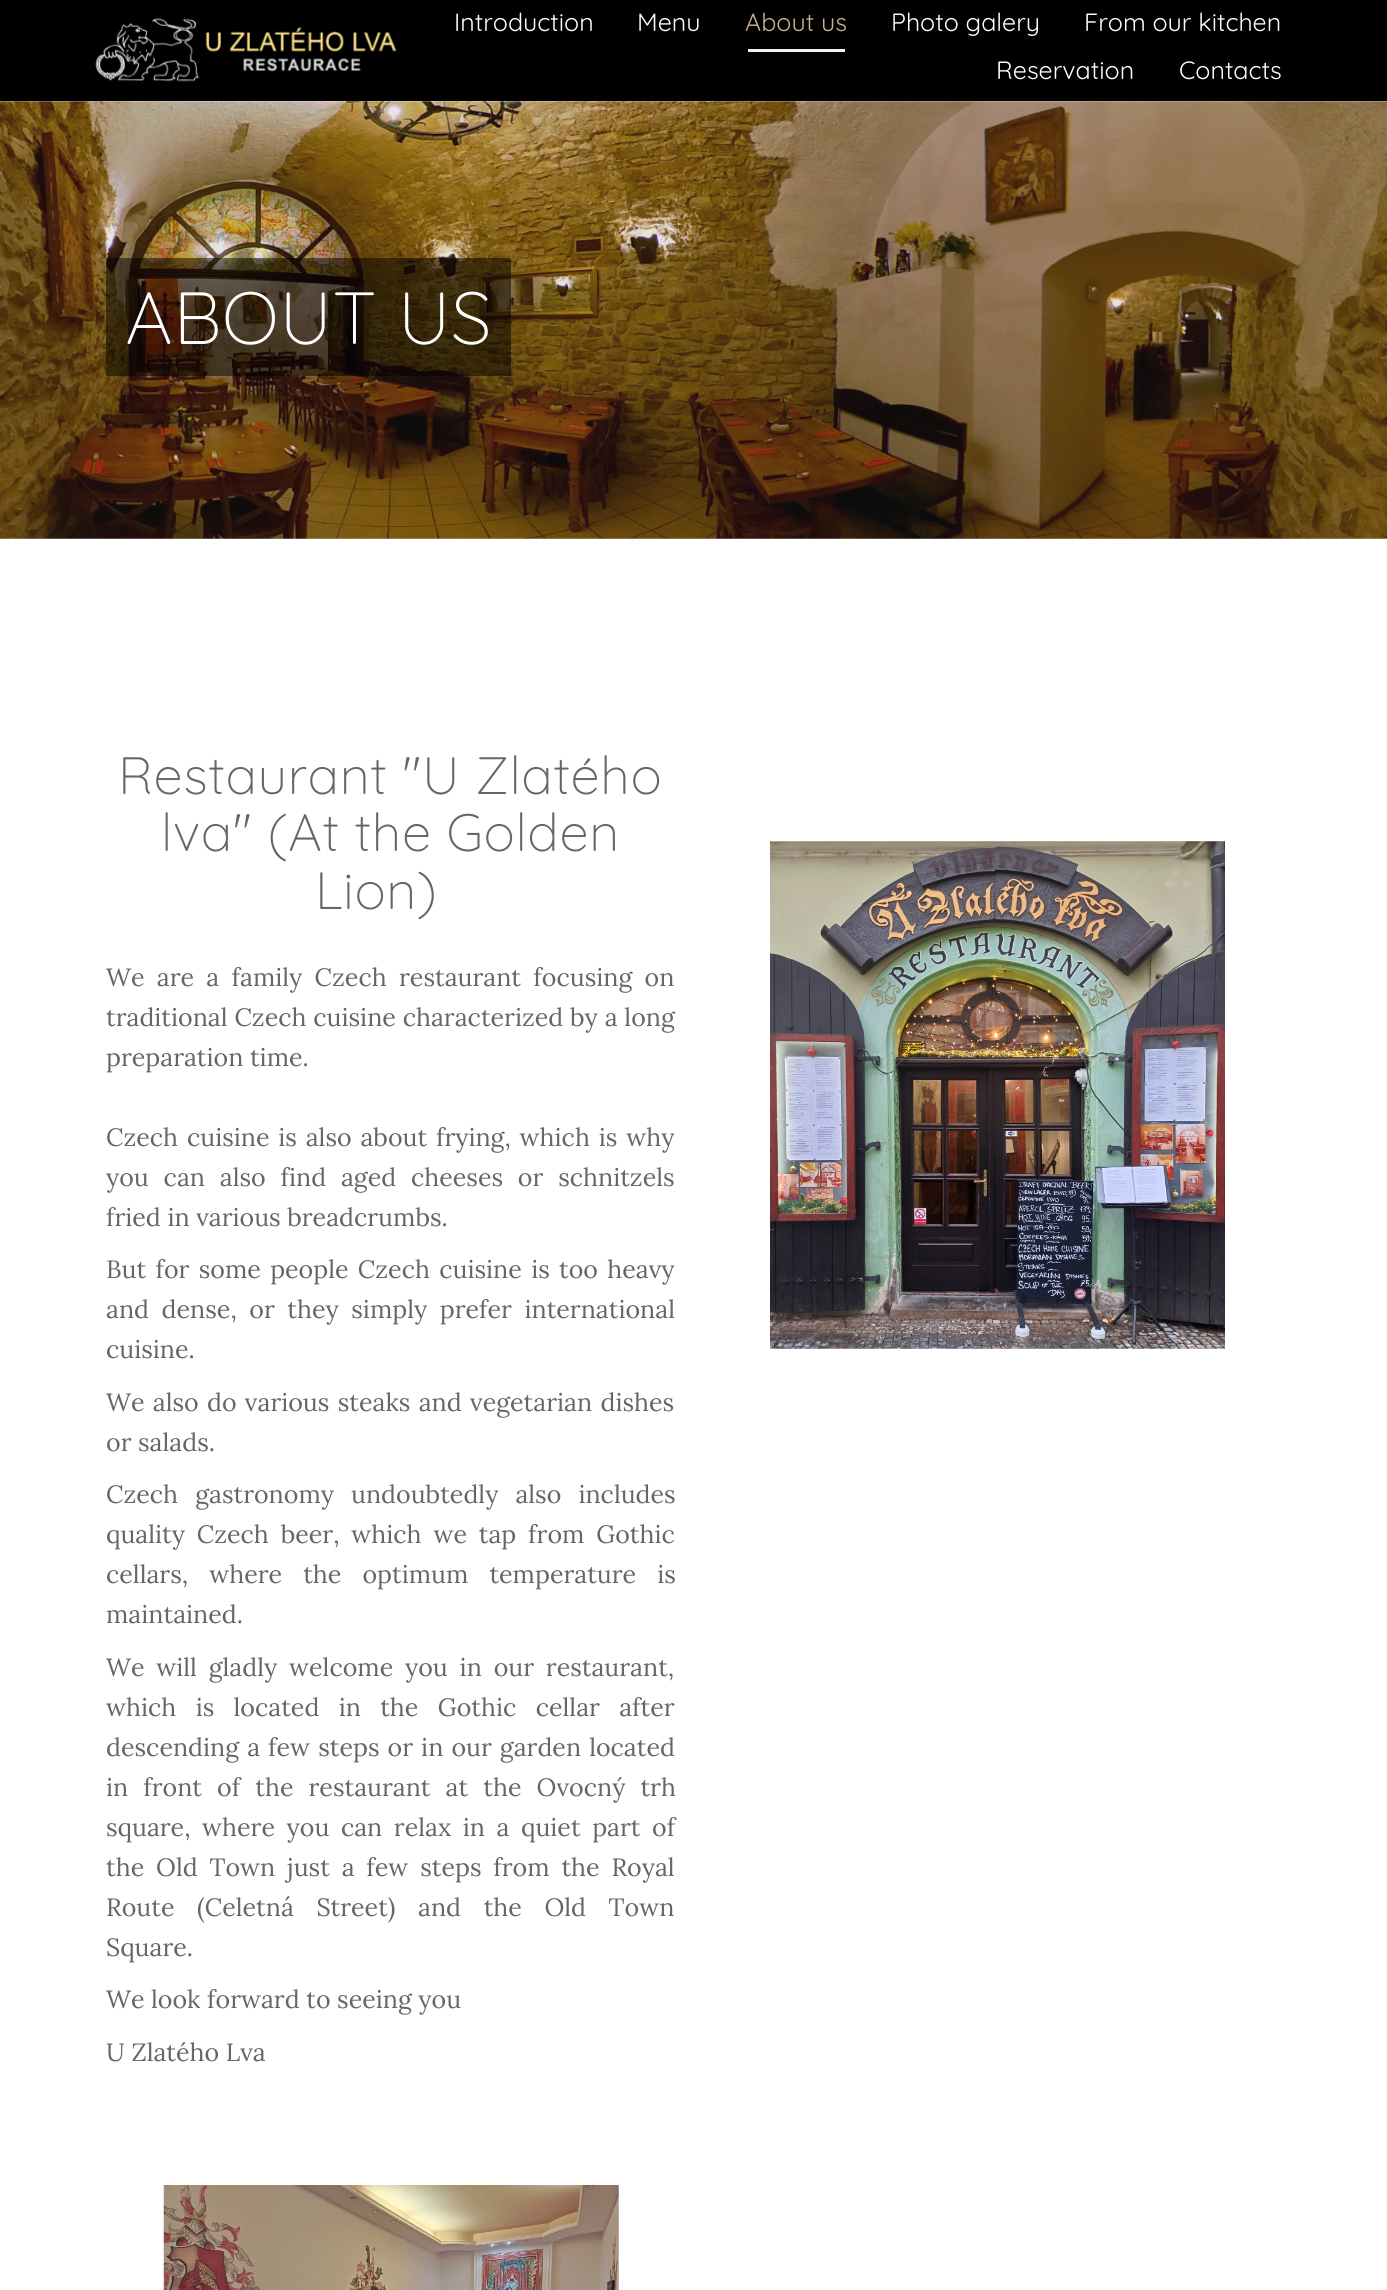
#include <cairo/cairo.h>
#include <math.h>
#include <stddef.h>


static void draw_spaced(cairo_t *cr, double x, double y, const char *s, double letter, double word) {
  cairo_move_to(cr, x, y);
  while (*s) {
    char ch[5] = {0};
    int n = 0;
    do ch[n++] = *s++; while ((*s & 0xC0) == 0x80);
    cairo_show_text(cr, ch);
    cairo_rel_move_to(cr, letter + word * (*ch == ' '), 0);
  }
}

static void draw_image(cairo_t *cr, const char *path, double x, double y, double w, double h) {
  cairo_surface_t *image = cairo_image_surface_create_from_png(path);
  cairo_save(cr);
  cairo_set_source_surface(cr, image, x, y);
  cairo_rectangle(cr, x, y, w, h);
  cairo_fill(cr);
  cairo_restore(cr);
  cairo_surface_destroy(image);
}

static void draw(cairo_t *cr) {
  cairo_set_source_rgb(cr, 1, 1, 1);
  cairo_paint(cr);
  cairo_set_source_rgb(cr, 0, 0, 0);
  cairo_rectangle(cr, 0, 0, 1387, 101);
  cairo_fill(cr);
  draw_image(cr, "images/1.png", 95, 18, 302, 64);
  cairo_set_source_rgb(cr, 242 / 255.0, 242 / 255.0, 242 / 255.0);
  cairo_rectangle(cr, 748, 49, 97, 3);
  cairo_fill(cr);
  draw_image(cr, "images/2.png", 0, 101, 1387, 438);
  cairo_set_source_rgba(cr, 0, 0, 0, 0.5);
  cairo_rectangle(cr, 106, 258, 405, 118);
  cairo_fill(cr);
  draw_image(cr, "images/3.png", 770, 841, 455, 508);
  draw_image(cr, "images/4.png", 163, 2185, 456, 105);
  cairo_select_font_face(cr, "Quicksand", CAIRO_FONT_SLANT_NORMAL, CAIRO_FONT_WEIGHT_NORMAL);
  cairo_set_font_size(cr, 25);
  cairo_set_source_rgb(cr, 1, 1, 1);
  cairo_move_to(cr, 454, 31);
  cairo_show_text(cr, "Introduction");
  cairo_move_to(cr, 637, 31);
  cairo_show_text(cr, "Menu");
  cairo_set_source_rgb(cr, 199 / 255.0, 178 / 255.0, 138 / 255.0);
  cairo_move_to(cr, 745, 31);
  cairo_show_text(cr, "About us");
  cairo_set_source_rgb(cr, 1, 1, 1);
  cairo_move_to(cr, 891, 31);
  cairo_show_text(cr, "Photo galery");
  cairo_move_to(cr, 1084, 31);
  cairo_show_text(cr, "From our kitchen");
  cairo_move_to(cr, 996, 79);
  cairo_show_text(cr, "Reservation");
  cairo_move_to(cr, 1179, 79);
  cairo_show_text(cr, "Contacts");
  cairo_select_font_face(cr, "Quicksand Light", CAIRO_FONT_SLANT_NORMAL, CAIRO_FONT_WEIGHT_NORMAL);
  cairo_set_font_size(cr, 73.75);
  draw_spaced(cr, 125, 344, "ABOUT US", 0.6, 0);
  cairo_set_font_size(cr, 52.5);
  cairo_set_source_rgb(cr, 102 / 255.0, 102 / 255.0, 102 / 255.0);
  draw_spaced(cr, 118, 794, "Restaurant \"U Zlatého", 0.6, 0);
  draw_spaced(cr, 161, 851, "lva\" (At the Golden", 0.6, 0);
  draw_spaced(cr, 315, 909, "Lion)", 0.6, 0);
  cairo_select_font_face(cr, "Lora", CAIRO_FONT_SLANT_NORMAL, CAIRO_FONT_WEIGHT_NORMAL);
  cairo_set_font_size(cr, 25);
  draw_spaced(cr, 106, 986, "We are a family Czech restaurant focusing on", 0, 5.75);
  draw_spaced(cr, 106, 1026, "traditional Czech cuisine characterized by a long", 0, 0.25);
  cairo_move_to(cr, 106, 1066);
  cairo_show_text(cr, "preparation time.");
  draw_spaced(cr, 106, 1146, "Czech cuisine is also about frying, which is why", 0, 2.25);
  draw_spaced(cr, 106, 1186, "you can also find aged cheeses or schnitzels", 0, 8.25);
  cairo_move_to(cr, 106, 1226);
  cairo_show_text(cr, "fried in various breadcrumbs.");
  draw_spaced(cr, 106, 1278, "But for some people Czech cuisine is too heavy", 0, 2.75);
  draw_spaced(cr, 106, 1318, "and dense, or they simply prefer international", 0, 6);
  cairo_move_to(cr, 106, 1358);
  cairo_show_text(cr, "cuisine.");
  draw_spaced(cr, 106, 1411, "We also do various steaks and vegetarian dishes", 0, 1.75);
  cairo_move_to(cr, 106, 1451);
  cairo_show_text(cr, "or salads.");
  draw_spaced(cr, 106, 1503, "Czech gastronomy undoubtedly also includes", 0, 10.5);
  draw_spaced(cr, 106, 1543, "quality Czech beer, which we tap from Gothic", 0, 5.25);
  draw_spaced(cr, 106, 1583, "cellars, where the optimum temperature is", 0, 14.5);
  cairo_move_to(cr, 106, 1623);
  cairo_show_text(cr, "maintained.");
  draw_spaced(cr, 106, 1676, "We will gladly welcome you in our restaurant,", 0, 5.25);
  draw_spaced(cr, 106, 1716, "which is located in the Gothic cellar after", 0, 12.75);
  draw_spaced(cr, 106, 1756, "descending a few steps or in our garden located", 0, 1.5);
  draw_spaced(cr, 106, 1796, "in front of the restaurant at the Ovocný trh", 0, 8.5);
  draw_spaced(cr, 106, 1836, "square, where you can relax in a quiet part of", 0, 5);
  draw_spaced(cr, 106, 1876, "the Old Town just a few steps from the Royal", 0, 5.25);
  draw_spaced(cr, 106, 1916, "Route (Celetná Street) and the Old Town", 0, 16);
  cairo_move_to(cr, 106, 1956);
  cairo_show_text(cr, "Square.");
  cairo_move_to(cr, 106, 2008);
  cairo_show_text(cr, "We look forward to seeing you");
  cairo_move_to(cr, 106, 2061);
  cairo_show_text(cr, "U Zlatého Lva");
}

int main(void) {
  cairo_surface_t *surface = cairo_image_surface_create(CAIRO_FORMAT_RGB24, 1387, 2290);
  cairo_t *cr = cairo_create(surface);
  cairo_font_options_t *options = cairo_font_options_create();
  cairo_font_options_set_hint_metrics(options, CAIRO_HINT_METRICS_OFF);
  cairo_font_options_set_hint_style(options, CAIRO_HINT_STYLE_NONE);
  cairo_set_font_options(cr, options);
  cairo_set_miter_limit(cr, 4);
  draw(cr);
  cairo_surface_write_to_png(surface, "out.png");
  cairo_font_options_destroy(options);
  cairo_destroy(cr);
  cairo_surface_destroy(surface);
  return 0;
}
